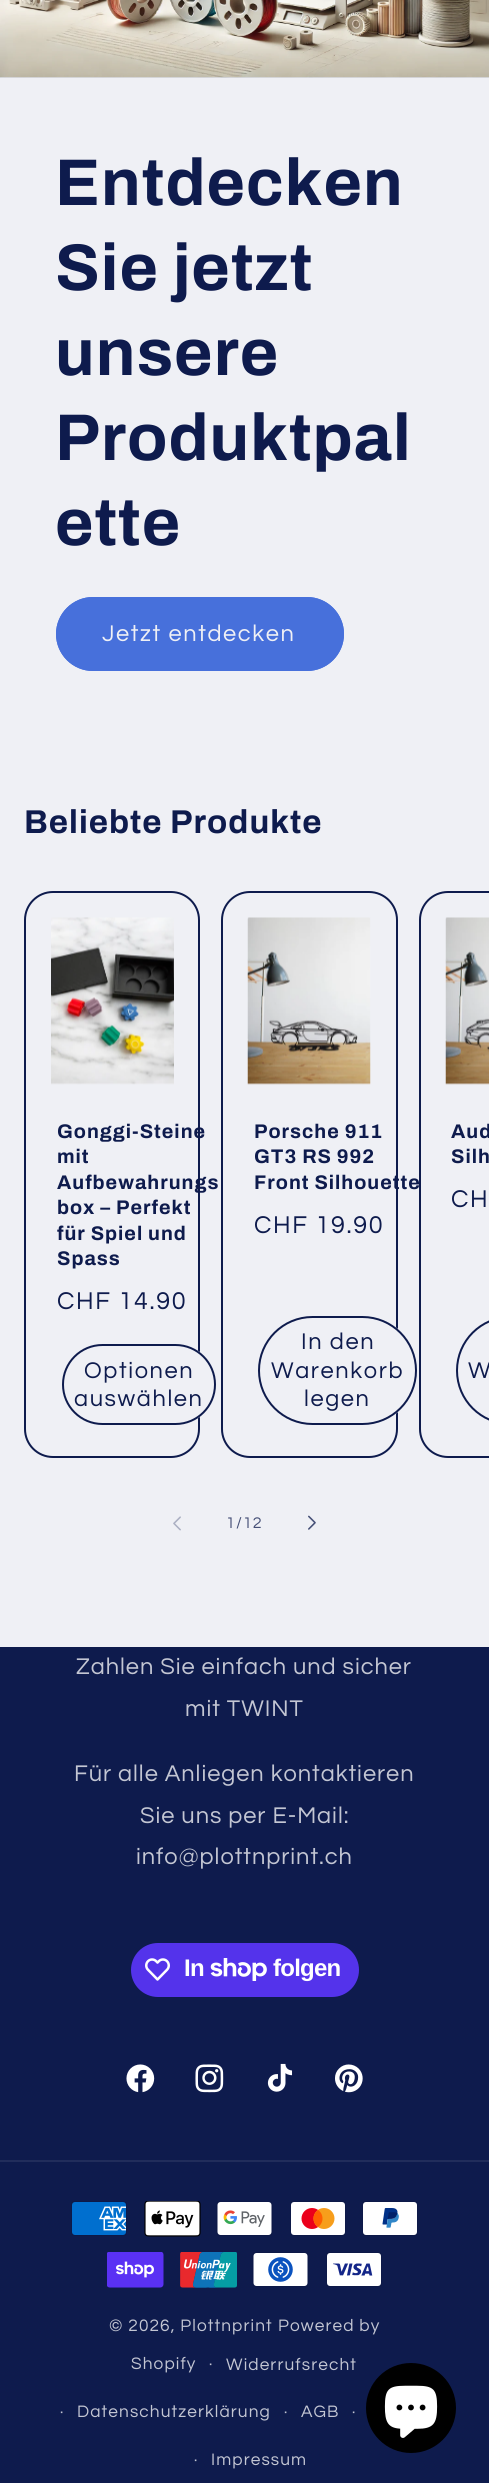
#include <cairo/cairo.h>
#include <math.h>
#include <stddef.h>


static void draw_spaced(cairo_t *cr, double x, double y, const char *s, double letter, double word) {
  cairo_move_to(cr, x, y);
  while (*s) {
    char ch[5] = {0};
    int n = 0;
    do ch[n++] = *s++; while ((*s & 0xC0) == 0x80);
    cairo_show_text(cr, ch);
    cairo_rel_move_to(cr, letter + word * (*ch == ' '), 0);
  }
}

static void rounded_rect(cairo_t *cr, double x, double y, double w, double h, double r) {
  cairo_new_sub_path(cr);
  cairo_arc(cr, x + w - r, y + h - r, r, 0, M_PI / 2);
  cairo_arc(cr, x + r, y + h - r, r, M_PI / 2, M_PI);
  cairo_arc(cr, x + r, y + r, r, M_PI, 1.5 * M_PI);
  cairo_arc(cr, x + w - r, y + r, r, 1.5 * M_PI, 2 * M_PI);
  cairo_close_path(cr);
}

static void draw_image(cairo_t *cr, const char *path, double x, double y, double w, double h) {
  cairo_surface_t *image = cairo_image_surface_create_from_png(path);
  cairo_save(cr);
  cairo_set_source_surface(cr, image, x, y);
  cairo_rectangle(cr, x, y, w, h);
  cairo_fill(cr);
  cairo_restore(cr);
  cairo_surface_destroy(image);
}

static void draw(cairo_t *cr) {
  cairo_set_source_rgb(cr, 239 / 255.0, 240 / 255.0, 245 / 255.0);
  cairo_paint(cr);
  cairo_set_source_rgb(cr, 216 / 255.0, 219 / 255.0, 228 / 255.0);
  cairo_rectangle(cr, 0, 77, 489, 1);
  cairo_fill(cr);
  draw_image(cr, "images/1.png", 0, 0, 489, 78);
  cairo_set_source_rgb(cr, 71 / 255.0, 112 / 255.0, 219 / 255.0);
  rounded_rect(cr, 56, 597, 288, 74, 37);
  cairo_fill(cr);
  rounded_rect(cr, 57, 598, 286, 72, 36);
  cairo_stroke(cr);
  rounded_rect(cr, 25, 892, 174, 565, 28);
  cairo_set_source_rgb(cr, 14 / 255.0, 27 / 255.0, 77 / 255.0);
  cairo_stroke(cr);
  draw_image(cr, "images/2.png", 51, 917, 123, 168);
  cairo_set_source_rgb(cr, 239 / 255.0, 240 / 255.0, 245 / 255.0);
  rounded_rect(cr, 62, 1344, 154, 81, 40.5);
  cairo_fill(cr);
  rounded_rect(cr, 63, 1345, 152, 79, 39.5);
  cairo_stroke(cr);
  rounded_rect(cr, 63, 1345, 152, 79, 39.5);
  cairo_set_source_rgb(cr, 14 / 255.0, 27 / 255.0, 77 / 255.0);
  cairo_stroke(cr);
  rounded_rect(cr, 222, 892, 175, 565, 28);
  cairo_stroke(cr);
  draw_image(cr, "images/3.png", 247, 917, 124, 168);
  cairo_set_source_rgb(cr, 239 / 255.0, 240 / 255.0, 245 / 255.0);
  rounded_rect(cr, 258, 1316, 159, 109, 54.5);
  cairo_fill(cr);
  rounded_rect(cr, 259, 1317, 157, 107, 53.5);
  cairo_stroke(cr);
  rounded_rect(cr, 259, 1317, 157, 107, 53.5);
  cairo_set_source_rgb(cr, 14 / 255.0, 27 / 255.0, 77 / 255.0);
  cairo_stroke(cr);
  draw_image(cr, "images/5.png", 173, 1516, 8, 15);
  draw_image(cr, "images/6.png", 308, 1515, 8, 15);
  cairo_rectangle(cr, 0, 1647, 489, 836);
  cairo_fill(cr);
  cairo_set_source_rgb(cr, 84 / 255.0, 51 / 255.0, 235 / 255.0);
  rounded_rect(cr, 131, 1943, 228, 54, 27);
  cairo_fill(cr);
  draw_image(cr, "images/7.png", 145, 1958, 25, 23);
  draw_image(cr, "images/8.png", 210, 1958, 57, 23);
  draw_image(cr, "images/9.png", 126, 2064, 29, 29);
  draw_image(cr, "images/10.png", 195, 2064, 29, 29);
  draw_image(cr, "images/11.png", 267, 2063, 26, 29);
  draw_image(cr, "images/12.png", 335, 2064, 28, 29);
  cairo_set_source_rgb(cr, 33 / 255.0, 45 / 255.0, 91 / 255.0);
  cairo_rectangle(cr, 0, 2160, 489, 2);
  cairo_fill(cr);
  draw_image(cr, "images/13.png", 71, 2201, 56, 35);
  draw_image(cr, "images/14.png", 144, 2201, 57, 36);
  draw_image(cr, "images/15.png", 216, 2201, 57, 35);
  draw_image(cr, "images/16.png", 290, 2201, 56, 35);
  draw_image(cr, "images/17.png", 362, 2201, 56, 35);
  draw_image(cr, "images/18.png", 107, 2252, 57, 36);
  draw_image(cr, "images/19.png", 180, 2252, 57, 36);
  draw_image(cr, "images/20.png", 252, 2252, 57, 35);
  draw_image(cr, "images/21.png", 326, 2252, 56, 35);
  cairo_set_source_rgb(cr, 0, 0, 0);
  cairo_arc(cr, 411, 2408, 45, 0, 2 * M_PI);
  cairo_fill(cr);
  draw_image(cr, "images/22.png", 384, 2385, 54, 53);
  cairo_select_font_face(cr, "Archivo", CAIRO_FONT_SLANT_NORMAL, CAIRO_FONT_WEIGHT_BOLD);
  cairo_set_font_size(cr, 66);
  cairo_set_source_rgb(cr, 14 / 255.0, 27 / 255.0, 77 / 255.0);
  draw_spaced(cr, 55, 205, "Entdecken", 1, 0);
  draw_spaced(cr, 55, 290, "Sie jetzt", 1, 0);
  draw_spaced(cr, 55, 375, "unsere", 1, 0);
  draw_spaced(cr, 55, 460, "Produktpal", 1, 0);
  draw_spaced(cr, 55, 545, "ette", 1, 0);
  cairo_select_font_face(cr, "Questrial", CAIRO_FONT_SLANT_NORMAL, CAIRO_FONT_WEIGHT_NORMAL);
  cairo_set_font_size(cr, 23.6);
  cairo_set_source_rgb(cr, 239 / 255.0, 240 / 255.0, 245 / 255.0);
  draw_spaced(cr, 102, 641, "Jetzt entdecken", 1.6, 0);
  cairo_select_font_face(cr, "Archivo", CAIRO_FONT_SLANT_NORMAL, CAIRO_FONT_WEIGHT_BOLD);
  cairo_set_font_size(cr, 33);
  cairo_set_source_rgb(cr, 14 / 255.0, 27 / 255.0, 77 / 255.0);
  draw_spaced(cr, 24, 833, "Beliebte Produkte", 1, 0);
  cairo_set_font_size(cr, 19.75);
  draw_spaced(cr, 57, 1138, "Gonggi-Steine", 1, 0);
  draw_spaced(cr, 57, 1163, "mit", 1, 0);
  draw_spaced(cr, 57, 1189, "Aufbewahrungs", 1, 0);
  draw_spaced(cr, 57, 1214, "box – Perfekt", 1, 0);
  draw_spaced(cr, 57, 1240, "für Spiel und", 1, 0);
  draw_spaced(cr, 57, 1265, "Spass", 1, 0);
  cairo_select_font_face(cr, "Questrial", CAIRO_FONT_SLANT_NORMAL, CAIRO_FONT_WEIGHT_NORMAL);
  cairo_set_font_size(cr, 25.25);
  draw_spaced(cr, 57, 1309, "CHF 14.90", 1.6, 0);
  cairo_set_font_size(cr, 23.6);
  draw_spaced(cr, 84, 1378, "Optionen", 1.6, 0);
  draw_spaced(cr, 74, 1406, "auswählen", 1.6, 0);
  cairo_select_font_face(cr, "Archivo", CAIRO_FONT_SLANT_NORMAL, CAIRO_FONT_WEIGHT_BOLD);
  cairo_set_font_size(cr, 19.75);
  draw_spaced(cr, 254, 1138, "Porsche 911", 1, 0);
  draw_spaced(cr, 254, 1163, "GT3 RS 992", 1, 0);
  draw_spaced(cr, 254, 1189, "Front Silhouette", 1, 0);
  cairo_select_font_face(cr, "Questrial", CAIRO_FONT_SLANT_NORMAL, CAIRO_FONT_WEIGHT_NORMAL);
  cairo_set_font_size(cr, 25.25);
  draw_spaced(cr, 254, 1233, "CHF 19.90", 1.6, 0);
  cairo_set_font_size(cr, 23.6);
  draw_spaced(cr, 301, 1349, "In den", 1.6, 0);
  draw_spaced(cr, 271, 1378, "Warenkorb", 1.6, 0);
  draw_spaced(cr, 304, 1406, "legen", 1.6, 0);
  cairo_set_source_rgb(cr, 239 / 255.0, 240 / 255.0, 245 / 255.0);
  cairo_new_path(cr);
  cairo_move_to(cr, 448, 891);
  cairo_line_to(cr, 489, 891);
  cairo_line_to(cr, 489, 1458);
  cairo_line_to(cr, 448, 1458);
  cairo_curve_to(cr, 432, 1458, 419, 1445, 419, 1429);
  cairo_line_to(cr, 419, 920);
  cairo_curve_to(cr, 419, 904, 432, 891, 448, 891);
  cairo_close_path(cr);
  cairo_fill(cr);
  rounded_rect(cr, 420, 892, 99, 565, 28);
  cairo_set_source_rgb(cr, 14 / 255.0, 27 / 255.0, 77 / 255.0);
  cairo_stroke(cr);
  draw_image(cr, "images/4.png", 445, 917, 44, 168);
  cairo_select_font_face(cr, "Archivo", CAIRO_FONT_SLANT_NORMAL, CAIRO_FONT_WEIGHT_BOLD);
  cairo_set_font_size(cr, 19.75);
  draw_spaced(cr, 451, 1138, "Aud", 1, 0);
  draw_spaced(cr, 451, 1163, "Silh", 1, 0);
  cairo_select_font_face(cr, "Questrial", CAIRO_FONT_SLANT_NORMAL, CAIRO_FONT_WEIGHT_NORMAL);
  cairo_set_font_size(cr, 25.25);
  draw_spaced(cr, 451, 1207, "CH", 1.6, 0);
  rounded_rect(cr, 457, 1317, 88, 107, 53.5);
  cairo_stroke(cr);
  cairo_set_font_size(cr, 23.6);
  draw_spaced(cr, 468, 1378, "W", 1.6, 0);
  cairo_set_font_size(cr, 16);
  cairo_set_source_rgb(cr, 70 / 255.0, 80 / 255.0, 119 / 255.0);
  draw_spaced(cr, 226, 1528, "1/12", 1.1, 0);
  cairo_set_font_size(cr, 23.6);
  cairo_set_source_rgb(cr, 195 / 255.0, 198 / 255.0, 211 / 255.0);
  draw_spaced(cr, 76, 1674, "Zahlen Sie einfach und sicher", 0.95, 0);
  draw_spaced(cr, 185, 1716, "mit TWINT", 0.95, 0);
  draw_spaced(cr, 74, 1781, "Für alle Anliegen kontaktieren", 0.95, 0);
  draw_spaced(cr, 140, 1823, "Sie uns per E-Mail:", 0.95, 0);
  draw_spaced(cr, 136, 1864, "info@plottnprint.ch", 0.95, 0);
  cairo_select_font_face(cr, "Liberation Sans", CAIRO_FONT_SLANT_NORMAL, CAIRO_FONT_WEIGHT_BOLD);
  cairo_set_font_size(cr, 24);
  cairo_set_source_rgb(cr, 1, 1, 1);
  draw_spaced(cr, 184, 1976, "In", -0.75, 0);
  draw_spaced(cr, 273, 1976, "folgen", -0.75, 0);
  cairo_select_font_face(cr, "Questrial", CAIRO_FONT_SLANT_NORMAL, CAIRO_FONT_WEIGHT_NORMAL);
  cairo_set_font_size(cr, 17.25);
  cairo_set_source_rgb(cr, 195 / 255.0, 198 / 255.0, 211 / 255.0);
  draw_spaced(cr, 109, 2331, "© 2026, Plottnprint", 1.1, 0);
  draw_spaced(cr, 278, 2331, "Powered by", 1.1, 0);
  draw_spaced(cr, 131, 2369, "Shopify", 1.1, 0);
  cairo_set_font_size(cr, 16);
  draw_spaced(cr, 209, 2369, "·", 1.1, 0);
  cairo_set_font_size(cr, 17.25);
  draw_spaced(cr, 226, 2370, "Widerrufsrecht", 1.1, 0);
  cairo_set_font_size(cr, 16);
  draw_spaced(cr, 60, 2417, "·", 1.1, 0);
  cairo_set_font_size(cr, 17.25);
  draw_spaced(cr, 77, 2417, "Datenschutzerklärung", 1.1, 0);
  cairo_set_font_size(cr, 16);
  draw_spaced(cr, 284, 2417, "·", 1.1, 0);
  cairo_set_font_size(cr, 17.25);
  draw_spaced(cr, 301, 2417, "AGB", 1.1, 0);
  cairo_set_font_size(cr, 16);
  draw_spaced(cr, 352, 2417, "·", 1.1, 0);
  draw_spaced(cr, 194, 2465, "·", 1.1, 0);
  cairo_set_font_size(cr, 17.25);
  draw_spaced(cr, 211, 2465, "Impressum", 1.1, 0);
}

int main(void) {
  cairo_surface_t *surface = cairo_image_surface_create(CAIRO_FORMAT_RGB24, 489, 2483);
  cairo_t *cr = cairo_create(surface);
  cairo_font_options_t *options = cairo_font_options_create();
  cairo_font_options_set_hint_metrics(options, CAIRO_HINT_METRICS_OFF);
  cairo_font_options_set_hint_style(options, CAIRO_HINT_STYLE_NONE);
  cairo_set_font_options(cr, options);
  cairo_set_miter_limit(cr, 4);
  draw(cr);
  cairo_surface_write_to_png(surface, "out.png");
  cairo_font_options_destroy(options);
  cairo_destroy(cr);
  cairo_surface_destroy(surface);
  return 0;
}
